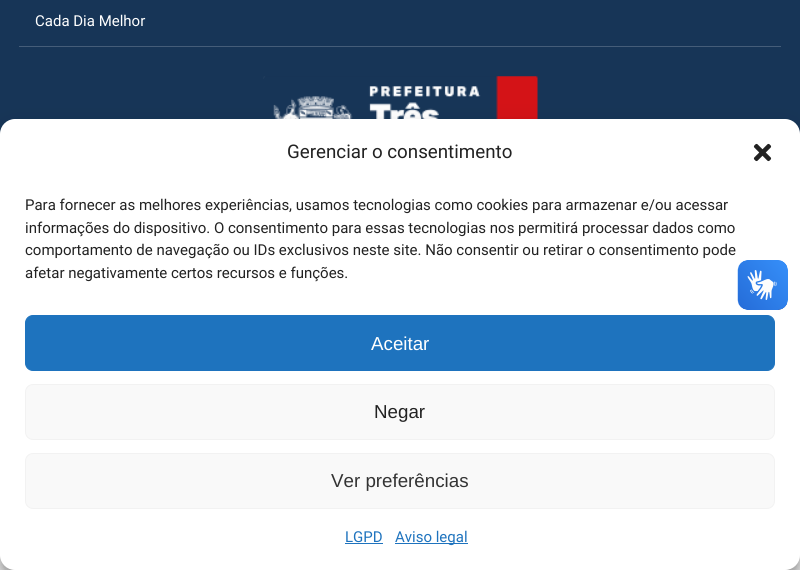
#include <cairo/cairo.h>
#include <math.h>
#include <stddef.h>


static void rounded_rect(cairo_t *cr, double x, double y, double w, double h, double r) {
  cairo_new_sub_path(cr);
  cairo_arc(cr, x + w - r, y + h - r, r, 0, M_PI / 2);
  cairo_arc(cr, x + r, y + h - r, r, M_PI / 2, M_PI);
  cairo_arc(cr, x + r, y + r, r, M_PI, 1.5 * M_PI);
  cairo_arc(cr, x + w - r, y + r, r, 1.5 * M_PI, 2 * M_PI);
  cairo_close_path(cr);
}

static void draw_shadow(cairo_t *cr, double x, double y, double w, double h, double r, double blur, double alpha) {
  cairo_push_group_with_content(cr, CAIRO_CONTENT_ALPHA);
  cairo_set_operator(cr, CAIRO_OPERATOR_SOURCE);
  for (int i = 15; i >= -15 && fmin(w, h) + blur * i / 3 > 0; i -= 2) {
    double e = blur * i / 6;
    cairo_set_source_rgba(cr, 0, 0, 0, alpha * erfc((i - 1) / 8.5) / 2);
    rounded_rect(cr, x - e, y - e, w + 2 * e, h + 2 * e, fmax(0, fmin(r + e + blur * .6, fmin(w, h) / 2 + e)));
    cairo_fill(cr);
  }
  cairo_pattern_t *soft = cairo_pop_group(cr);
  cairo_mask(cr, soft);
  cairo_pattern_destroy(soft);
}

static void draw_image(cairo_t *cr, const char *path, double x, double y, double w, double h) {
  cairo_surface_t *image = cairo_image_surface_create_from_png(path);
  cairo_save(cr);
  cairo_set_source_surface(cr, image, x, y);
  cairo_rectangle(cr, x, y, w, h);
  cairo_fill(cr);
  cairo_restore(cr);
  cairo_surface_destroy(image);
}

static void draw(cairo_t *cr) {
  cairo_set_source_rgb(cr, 242 / 255.0, 242 / 255.0, 242 / 255.0);
  cairo_paint(cr);
  cairo_set_source_rgb(cr, 23 / 255.0, 53 / 255.0, 87 / 255.0);
  cairo_rectangle(cr, 0, 0, 800, 134);
  cairo_fill(cr);
  cairo_set_source_rgb(cr, 69 / 255.0, 93 / 255.0, 121 / 255.0);
  cairo_rectangle(cr, 19, 46, 762, 1);
  cairo_fill(cr);
  draw_image(cr, "images/1.png", 263, 76, 275, 43);
  cairo_set_source_rgb(cr, 0, 0, 0);
  draw_shadow(cr, 0, 126, 800, 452, 15, 4, 0.23);
  draw_shadow(cr, 0, 131, 800, 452, 15, 12.5, 0.19);
  cairo_set_source_rgb(cr, 1, 1, 1);
  rounded_rect(cr, 0, 119, 800, 451, 15);
  cairo_fill(cr);
  draw_image(cr, "images/2.png", 753, 143, 19, 19);
  cairo_set_source_rgb(cr, 30 / 255.0, 115 / 255.0, 190 / 255.0);
  rounded_rect(cr, 25.5, 315.5, 749, 55, 7.5);
  cairo_fill_preserve(cr);
  cairo_set_line_width(cr, 1);
  cairo_stroke(cr);
  cairo_set_source_rgb(cr, 249 / 255.0, 249 / 255.0, 249 / 255.0);
  rounded_rect(cr, 25.5, 384.5, 749, 55, 7.5);
  cairo_fill_preserve(cr);
  cairo_set_source_rgb(cr, 242 / 255.0, 242 / 255.0, 242 / 255.0);
  cairo_stroke(cr);
  cairo_set_source_rgb(cr, 249 / 255.0, 249 / 255.0, 249 / 255.0);
  rounded_rect(cr, 25.5, 453.5, 749, 55, 7.5);
  cairo_fill_preserve(cr);
  cairo_set_source_rgb(cr, 242 / 255.0, 242 / 255.0, 242 / 255.0);
  cairo_stroke(cr);
  cairo_set_source_rgb(cr, 30 / 255.0, 115 / 255.0, 190 / 255.0);
  cairo_rectangle(cr, 345, 543, 38, 1);
  cairo_fill(cr);
  cairo_rectangle(cr, 395, 543, 73, 1);
  cairo_fill(cr);
  draw_image(cr, "images/3.png", 737, 260, 51, 50);
  draw_image(cr, "images/4.png", 738, 260, 50, 50);
  cairo_select_font_face(cr, "Roboto", CAIRO_FONT_SLANT_NORMAL, CAIRO_FONT_WEIGHT_NORMAL);
  cairo_set_font_size(cr, 15);
  cairo_set_source_rgb(cr, 1, 1, 1);
  cairo_move_to(cr, 35, 26);
  cairo_show_text(cr, "Cada Dia Melhor");
  cairo_set_font_size(cr, 18.75);
  cairo_set_source_rgb(cr, 34 / 255.0, 34 / 255.0, 34 / 255.0);
  cairo_move_to(cr, 287, 158);
  cairo_show_text(cr, "Gerenciar o consentimento");
  cairo_set_font_size(cr, 15);
  cairo_move_to(cr, 25, 210);
  cairo_show_text(cr, "Para fornecer as melhores experiências, usamos tecnologias como cookies para armazenar e/ou acessar");
  cairo_move_to(cr, 25, 233);
  cairo_show_text(cr, "informações do dispositivo. O consentimento para essas tecnologias nos permitirá processar dados como");
  cairo_move_to(cr, 25, 255);
  cairo_show_text(cr, "comportamento de navegação ou IDs exclusivos neste site. Não consentir ou retirar o consentimento pode");
  cairo_move_to(cr, 25, 278);
  cairo_show_text(cr, "afetar negativamente certos recursos e funções.");
  cairo_select_font_face(cr, "Liberation Sans", CAIRO_FONT_SLANT_NORMAL, CAIRO_FONT_WEIGHT_NORMAL);
  cairo_set_font_size(cr, 18.75);
  cairo_set_source_rgb(cr, 1, 1, 1);
  cairo_move_to(cr, 371, 350);
  cairo_show_text(cr, "Aceitar");
  cairo_set_source_rgb(cr, 34 / 255.0, 34 / 255.0, 34 / 255.0);
  cairo_move_to(cr, 374, 418);
  cairo_show_text(cr, "Negar");
  cairo_set_source_rgb(cr, 51 / 255.0, 51 / 255.0, 51 / 255.0);
  cairo_move_to(cr, 331, 487);
  cairo_show_text(cr, "Ver preferências");
  cairo_select_font_face(cr, "Roboto", CAIRO_FONT_SLANT_NORMAL, CAIRO_FONT_WEIGHT_NORMAL);
  cairo_set_font_size(cr, 15);
  cairo_set_source_rgb(cr, 30 / 255.0, 115 / 255.0, 190 / 255.0);
  cairo_move_to(cr, 345, 542);
  cairo_show_text(cr, "LGPD");
  cairo_move_to(cr, 395, 542);
  cairo_show_text(cr, "Aviso legal");
}

int main(void) {
  cairo_surface_t *surface = cairo_image_surface_create(CAIRO_FORMAT_RGB24, 800, 570);
  cairo_t *cr = cairo_create(surface);
  cairo_font_options_t *options = cairo_font_options_create();
  cairo_font_options_set_hint_metrics(options, CAIRO_HINT_METRICS_OFF);
  cairo_font_options_set_hint_style(options, CAIRO_HINT_STYLE_NONE);
  cairo_set_font_options(cr, options);
  cairo_set_miter_limit(cr, 4);
  draw(cr);
  cairo_surface_write_to_png(surface, "out.png");
  cairo_font_options_destroy(options);
  cairo_destroy(cr);
  cairo_surface_destroy(surface);
  return 0;
}
